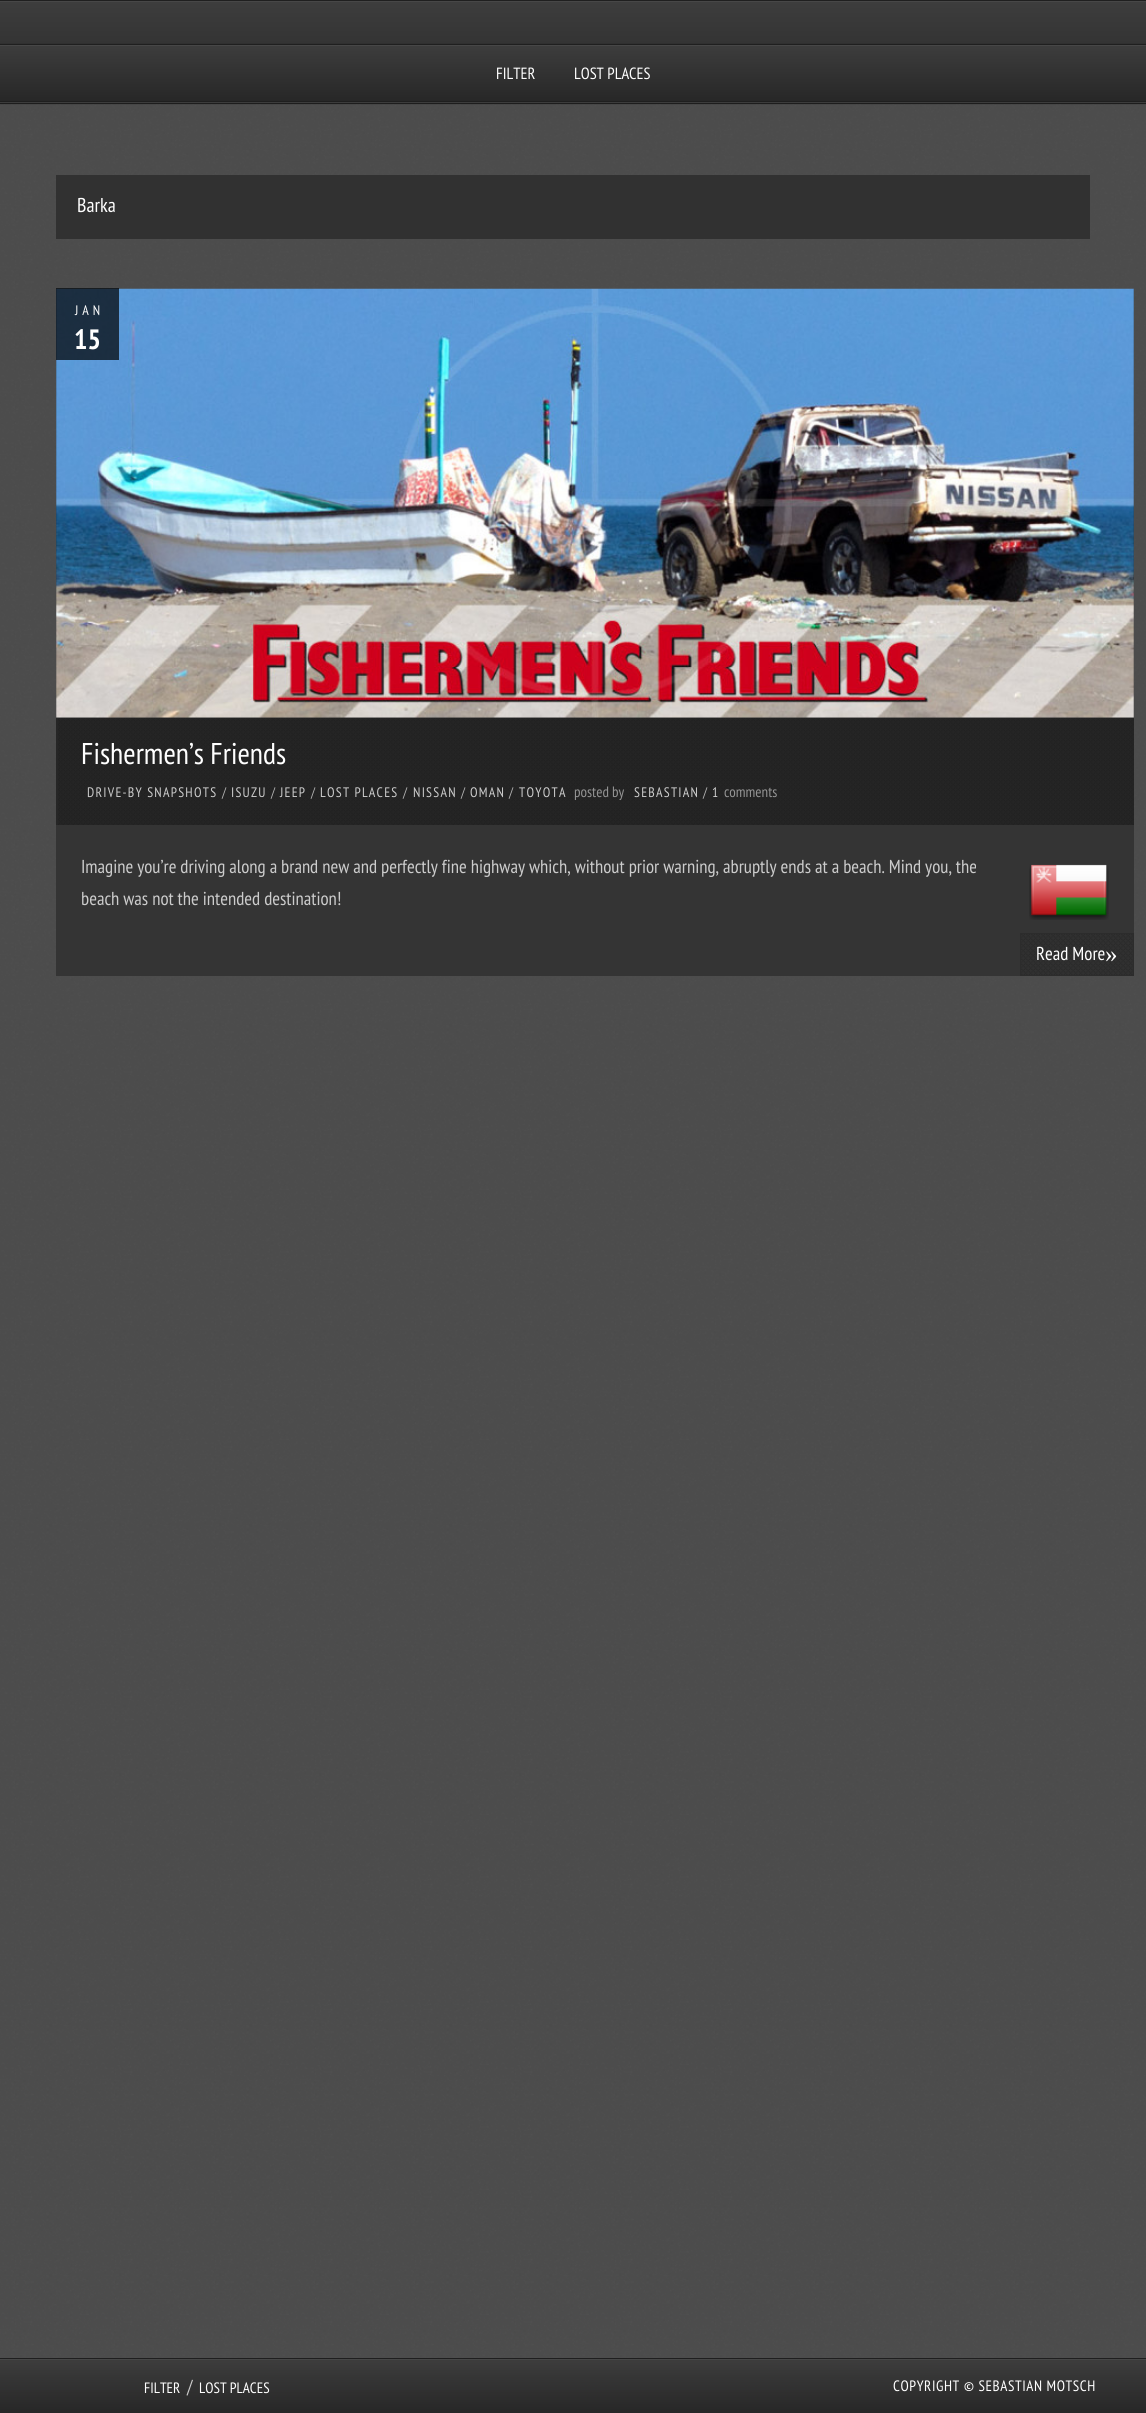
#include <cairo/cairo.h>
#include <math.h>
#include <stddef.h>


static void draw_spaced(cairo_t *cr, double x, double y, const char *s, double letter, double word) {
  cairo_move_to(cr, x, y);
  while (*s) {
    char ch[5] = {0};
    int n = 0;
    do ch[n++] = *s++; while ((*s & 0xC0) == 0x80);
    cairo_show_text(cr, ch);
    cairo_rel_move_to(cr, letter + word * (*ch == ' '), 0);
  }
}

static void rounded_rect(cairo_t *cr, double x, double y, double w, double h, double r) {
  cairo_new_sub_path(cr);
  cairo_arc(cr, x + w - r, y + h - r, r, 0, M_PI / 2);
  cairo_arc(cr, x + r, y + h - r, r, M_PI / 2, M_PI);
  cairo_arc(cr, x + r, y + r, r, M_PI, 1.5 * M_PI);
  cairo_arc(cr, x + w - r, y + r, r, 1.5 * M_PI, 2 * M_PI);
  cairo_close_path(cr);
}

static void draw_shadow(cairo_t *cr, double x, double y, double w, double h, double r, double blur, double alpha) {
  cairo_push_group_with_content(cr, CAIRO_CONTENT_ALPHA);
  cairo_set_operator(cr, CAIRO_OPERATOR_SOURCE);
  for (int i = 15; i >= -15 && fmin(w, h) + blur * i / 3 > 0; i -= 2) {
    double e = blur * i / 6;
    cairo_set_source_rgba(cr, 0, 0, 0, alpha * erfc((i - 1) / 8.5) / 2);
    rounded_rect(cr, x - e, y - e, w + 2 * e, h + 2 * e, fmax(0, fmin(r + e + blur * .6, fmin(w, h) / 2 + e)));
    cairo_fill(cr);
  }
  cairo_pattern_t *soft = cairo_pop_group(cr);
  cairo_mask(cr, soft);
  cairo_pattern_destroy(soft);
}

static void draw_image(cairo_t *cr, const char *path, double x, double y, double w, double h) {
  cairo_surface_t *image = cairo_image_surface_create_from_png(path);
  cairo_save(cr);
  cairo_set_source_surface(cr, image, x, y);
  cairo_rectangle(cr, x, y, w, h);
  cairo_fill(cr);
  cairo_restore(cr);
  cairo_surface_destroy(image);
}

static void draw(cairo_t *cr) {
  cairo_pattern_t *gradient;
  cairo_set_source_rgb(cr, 106 / 255.0, 106 / 255.0, 106 / 255.0);
  cairo_paint(cr);
  draw_image(cr, "images/1.png", 0, 104, 1146, 2254);
  cairo_set_source_rgb(cr, 0, 0, 0);
  draw_shadow(cr, 0, 0, 1146, 104, 0, 0.5, 0.3);
  gradient = cairo_pattern_create_linear(573, 1.2, 573, 103);
  cairo_pattern_add_color_stop_rgba(gradient, 0, 61 / 255.0, 61 / 255.0, 61 / 255.0, 1);
  cairo_pattern_add_color_stop_rgba(gradient, 1, 39 / 255.0, 39 / 255.0, 39 / 255.0, 1);
  cairo_set_source(cr, gradient);
  cairo_pattern_destroy(gradient);
  cairo_rectangle(cr, 0, 2, 1146, 42);
  cairo_fill(cr);
  cairo_set_source_rgb(cr, 71 / 255.0, 71 / 255.0, 71 / 255.0);
  cairo_rectangle(cr, 0, 1, 1146, 1);
  cairo_fill(cr);
  cairo_set_source_rgb(cr, 31 / 255.0, 31 / 255.0, 31 / 255.0);
  cairo_rectangle(cr, 0, 0, 1146, 1);
  cairo_fill(cr);
  cairo_rectangle(cr, 0, 103, 1146, 1);
  cairo_fill(cr);
  cairo_set_source_rgb(cr, 0, 0, 0);
  draw_shadow(cr, 0, 44, 1146, 59, 0, 0.5, 0.3);
  gradient = cairo_pattern_create_linear(573, 45, 573, 101);
  cairo_pattern_add_color_stop_rgba(gradient, 0, 61 / 255.0, 61 / 255.0, 61 / 255.0, 1);
  cairo_pattern_add_color_stop_rgba(gradient, 1, 39 / 255.0, 39 / 255.0, 39 / 255.0, 1);
  cairo_set_source(cr, gradient);
  cairo_pattern_destroy(gradient);
  cairo_rectangle(cr, 0, 46, 1146, 55);
  cairo_fill(cr);
  gradient = cairo_pattern_create_linear(573, 101, 573, 158);
  cairo_pattern_add_color_stop_rgba(gradient, 0, 61 / 255.0, 61 / 255.0, 61 / 255.0, 1);
  cairo_pattern_add_color_stop_rgba(gradient, 1, 39 / 255.0, 39 / 255.0, 39 / 255.0, 1);
  cairo_set_source(cr, gradient);
  cairo_pattern_destroy(gradient);
  cairo_rectangle(cr, 0, 102, 1146, 1);
  cairo_fill(cr);
  cairo_set_source_rgb(cr, 71 / 255.0, 71 / 255.0, 71 / 255.0);
  cairo_rectangle(cr, 0, 45, 1146, 1);
  cairo_fill(cr);
  cairo_set_source_rgb(cr, 31 / 255.0, 31 / 255.0, 31 / 255.0);
  cairo_rectangle(cr, 0, 44, 1146, 1);
  cairo_fill(cr);
  cairo_rectangle(cr, 0, 101, 1146, 1);
  cairo_fill(cr);
  cairo_set_source_rgb(cr, 49 / 255.0, 49 / 255.0, 49 / 255.0);
  cairo_rectangle(cr, 56, 175, 1034, 64);
  cairo_fill(cr);
  cairo_set_source_rgb(cr, 52 / 255.0, 52 / 255.0, 52 / 255.0);
  cairo_rectangle(cr, 56, 289, 1078, 687);
  cairo_fill(cr);
  draw_image(cr, "images/2.png", 56, 288, 1078, 430);
  cairo_set_source_rgba(cr, 0, 0, 0, 0.7);
  cairo_rectangle(cr, 56, 288, 63, 72);
  cairo_fill(cr);
  cairo_set_source_rgb(cr, 38 / 255.0, 38 / 255.0, 38 / 255.0);
  cairo_rectangle(cr, 56, 718, 1078, 107);
  cairo_fill(cr);
  draw_image(cr, "images/3.png", 58, 718, 1076, 107);
  draw_image(cr, "images/4.png", 1029, 864, 80, 56);
  draw_image(cr, "images/5.png", 1021, 934, 112, 41);
  cairo_rectangle(cr, 1020.5, 933.5, 113, 42);
  cairo_set_source_rgb(cr, 44 / 255.0, 44 / 255.0, 44 / 255.0);
  cairo_set_line_width(cr, 1);
  cairo_stroke(cr);
  gradient = cairo_pattern_create_linear(573, 2359, 573, 2413);
  cairo_pattern_add_color_stop_rgba(gradient, 0, 61 / 255.0, 61 / 255.0, 61 / 255.0, 1);
  cairo_pattern_add_color_stop_rgba(gradient, 1, 39 / 255.0, 39 / 255.0, 39 / 255.0, 1);
  cairo_set_source(cr, gradient);
  cairo_pattern_destroy(gradient);
  cairo_rectangle(cr, 0, 2360, 1146, 53);
  cairo_fill(cr);
  cairo_set_source_rgb(cr, 71 / 255.0, 71 / 255.0, 71 / 255.0);
  cairo_rectangle(cr, 0, 2359, 1146, 1);
  cairo_fill(cr);
  cairo_set_source_rgb(cr, 31 / 255.0, 31 / 255.0, 31 / 255.0);
  cairo_rectangle(cr, 0, 2358, 1146, 1);
  cairo_fill(cr);
  cairo_select_font_face(cr, "PT Sans Narrow", CAIRO_FONT_SLANT_NORMAL, CAIRO_FONT_WEIGHT_NORMAL);
  cairo_set_font_size(cr, 16.25);
  cairo_set_source_rgb(cr, 1, 1, 1);
  cairo_move_to(cr, 496, 79);
  cairo_show_text(cr, "FILTER");
  cairo_move_to(cr, 574, 79);
  cairo_show_text(cr, "LOST PLACES");
  cairo_set_font_size(cr, 20);
  cairo_move_to(cr, 77, 212);
  cairo_show_text(cr, "Barka");
  cairo_set_font_size(cr, 13.75);
  draw_spaced(cr, 75, 315, "JAN", 4, 0);
  cairo_select_font_face(cr, "PT Sans Narrow", CAIRO_FONT_SLANT_NORMAL, CAIRO_FONT_WEIGHT_BOLD);
  cairo_set_font_size(cr, 28);
  cairo_move_to(cr, 74, 349);
  cairo_show_text(cr, "15");
  cairo_select_font_face(cr, "PT Sans Narrow", CAIRO_FONT_SLANT_NORMAL, CAIRO_FONT_WEIGHT_NORMAL);
  cairo_set_font_size(cr, 30);
  cairo_move_to(cr, 81, 764);
  cairo_show_text(cr, "Fishermen’s Friends");
  cairo_set_font_size(cr, 13.75);
  cairo_set_source_rgb(cr, 204 / 255.0, 204 / 255.0, 204 / 255.0);
  draw_spaced(cr, 87, 797, "DRIVE-BY SNAPSHOTS", 1.25, 0);
  cairo_set_source_rgb(cr, 181 / 255.0, 181 / 255.0, 181 / 255.0);
  draw_spaced(cr, 222, 797, "/", 1.25, 0);
  cairo_set_source_rgb(cr, 204 / 255.0, 204 / 255.0, 204 / 255.0);
  draw_spaced(cr, 231, 797, "ISUZU", 1.25, 0);
  cairo_set_source_rgb(cr, 181 / 255.0, 181 / 255.0, 181 / 255.0);
  draw_spaced(cr, 271, 797, "/", 1.25, 0);
  cairo_set_source_rgb(cr, 204 / 255.0, 204 / 255.0, 204 / 255.0);
  draw_spaced(cr, 280, 797, "JEEP", 1.25, 0);
  cairo_set_source_rgb(cr, 181 / 255.0, 181 / 255.0, 181 / 255.0);
  draw_spaced(cr, 311, 797, "/", 1.25, 0);
  cairo_set_source_rgb(cr, 204 / 255.0, 204 / 255.0, 204 / 255.0);
  draw_spaced(cr, 320, 797, "LOST PLACES", 1.25, 0);
  cairo_set_source_rgb(cr, 181 / 255.0, 181 / 255.0, 181 / 255.0);
  draw_spaced(cr, 403, 797, "/", 1.25, 0);
  cairo_set_source_rgb(cr, 204 / 255.0, 204 / 255.0, 204 / 255.0);
  draw_spaced(cr, 413, 797, "NISSAN", 1.25, 0);
  cairo_set_source_rgb(cr, 181 / 255.0, 181 / 255.0, 181 / 255.0);
  draw_spaced(cr, 461, 797, "/", 1.25, 0);
  cairo_set_source_rgb(cr, 204 / 255.0, 204 / 255.0, 204 / 255.0);
  draw_spaced(cr, 470, 797, "OMAN", 1.25, 0);
  cairo_set_source_rgb(cr, 181 / 255.0, 181 / 255.0, 181 / 255.0);
  draw_spaced(cr, 509, 797, "/", 1.25, 0);
  cairo_set_source_rgb(cr, 204 / 255.0, 204 / 255.0, 204 / 255.0);
  draw_spaced(cr, 519, 797, "TOYOTA", 1.25, 0);
  cairo_set_font_size(cr, 15);
  cairo_set_source_rgb(cr, 148 / 255.0, 148 / 255.0, 148 / 255.0);
  cairo_move_to(cr, 574, 797);
  cairo_show_text(cr, "posted by");
  cairo_set_font_size(cr, 13.75);
  cairo_set_source_rgb(cr, 204 / 255.0, 204 / 255.0, 204 / 255.0);
  draw_spaced(cr, 634, 797, "SEBASTIAN", 1.25, 0);
  cairo_set_source_rgb(cr, 181 / 255.0, 181 / 255.0, 181 / 255.0);
  draw_spaced(cr, 703, 797, "/", 1.25, 0);
  cairo_set_source_rgb(cr, 204 / 255.0, 204 / 255.0, 204 / 255.0);
  draw_spaced(cr, 712, 797, "1", 1.25, 0);
  cairo_set_font_size(cr, 15);
  cairo_set_source_rgb(cr, 148 / 255.0, 148 / 255.0, 148 / 255.0);
  cairo_move_to(cr, 724, 797);
  cairo_show_text(cr, "comments");
  cairo_set_font_size(cr, 18.75);
  cairo_set_source_rgb(cr, 204 / 255.0, 204 / 255.0, 204 / 255.0);
  cairo_move_to(cr, 81, 873);
  cairo_show_text(cr, "Imagine you’re driving along a brand new and perfectly fine highway which, without prior warning, abruptly ends at a beach. Mind you, the");
  cairo_move_to(cr, 81, 905);
  cairo_show_text(cr, "beach was not the intended destination!");
  cairo_set_source_rgb(cr, 1, 1, 1);
  cairo_move_to(cr, 1036, 960);
  cairo_show_text(cr, "Read More");
  cairo_select_font_face(cr, "Liberation Serif", CAIRO_FONT_SLANT_NORMAL, CAIRO_FONT_WEIGHT_NORMAL);
  cairo_set_font_size(cr, 25);
  cairo_move_to(cr, 1105, 962);
  cairo_show_text(cr, "»");
  cairo_select_font_face(cr, "PT Sans Narrow", CAIRO_FONT_SLANT_NORMAL, CAIRO_FONT_WEIGHT_NORMAL);
  cairo_set_font_size(cr, 15);
  cairo_move_to(cr, 144, 2393);
  cairo_show_text(cr, "FILTER");
  cairo_set_font_size(cr, 18.75);
  cairo_set_source_rgb(cr, 204 / 255.0, 204 / 255.0, 204 / 255.0);
  cairo_move_to(cr, 187, 2393);
  cairo_show_text(cr, "/");
  cairo_set_font_size(cr, 15);
  cairo_set_source_rgb(cr, 1, 1, 1);
  cairo_move_to(cr, 199, 2393);
  cairo_show_text(cr, "LOST PLACES");
  draw_spaced(cr, 893, 2391, "COPYRIGHT © SEBASTIAN MOTSCH", 0.6, 0);
}

int main(void) {
  cairo_surface_t *surface = cairo_image_surface_create(CAIRO_FORMAT_RGB24, 1146, 2413);
  cairo_t *cr = cairo_create(surface);
  cairo_font_options_t *options = cairo_font_options_create();
  cairo_font_options_set_hint_metrics(options, CAIRO_HINT_METRICS_OFF);
  cairo_font_options_set_hint_style(options, CAIRO_HINT_STYLE_NONE);
  cairo_set_font_options(cr, options);
  cairo_set_miter_limit(cr, 4);
  draw(cr);
  cairo_surface_write_to_png(surface, "out.png");
  cairo_font_options_destroy(options);
  cairo_destroy(cr);
  cairo_surface_destroy(surface);
  return 0;
}
